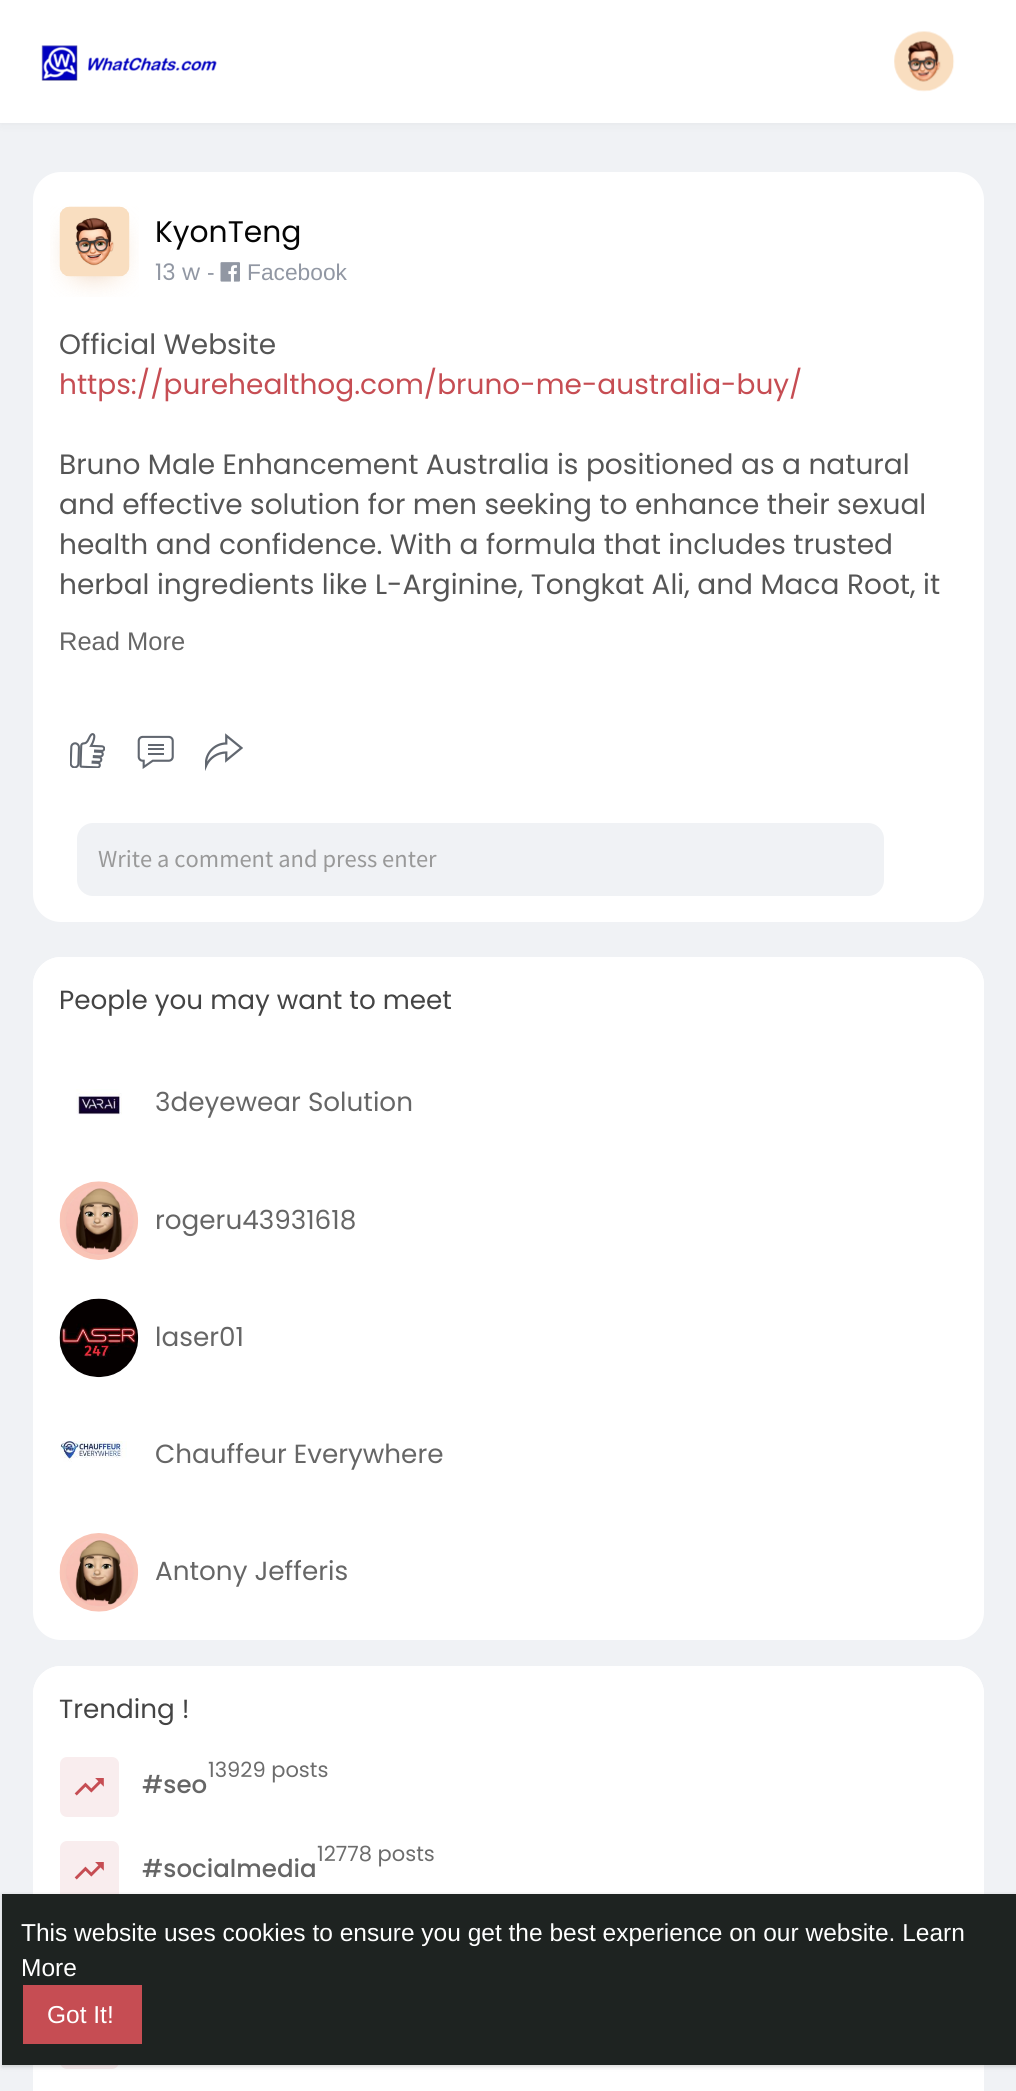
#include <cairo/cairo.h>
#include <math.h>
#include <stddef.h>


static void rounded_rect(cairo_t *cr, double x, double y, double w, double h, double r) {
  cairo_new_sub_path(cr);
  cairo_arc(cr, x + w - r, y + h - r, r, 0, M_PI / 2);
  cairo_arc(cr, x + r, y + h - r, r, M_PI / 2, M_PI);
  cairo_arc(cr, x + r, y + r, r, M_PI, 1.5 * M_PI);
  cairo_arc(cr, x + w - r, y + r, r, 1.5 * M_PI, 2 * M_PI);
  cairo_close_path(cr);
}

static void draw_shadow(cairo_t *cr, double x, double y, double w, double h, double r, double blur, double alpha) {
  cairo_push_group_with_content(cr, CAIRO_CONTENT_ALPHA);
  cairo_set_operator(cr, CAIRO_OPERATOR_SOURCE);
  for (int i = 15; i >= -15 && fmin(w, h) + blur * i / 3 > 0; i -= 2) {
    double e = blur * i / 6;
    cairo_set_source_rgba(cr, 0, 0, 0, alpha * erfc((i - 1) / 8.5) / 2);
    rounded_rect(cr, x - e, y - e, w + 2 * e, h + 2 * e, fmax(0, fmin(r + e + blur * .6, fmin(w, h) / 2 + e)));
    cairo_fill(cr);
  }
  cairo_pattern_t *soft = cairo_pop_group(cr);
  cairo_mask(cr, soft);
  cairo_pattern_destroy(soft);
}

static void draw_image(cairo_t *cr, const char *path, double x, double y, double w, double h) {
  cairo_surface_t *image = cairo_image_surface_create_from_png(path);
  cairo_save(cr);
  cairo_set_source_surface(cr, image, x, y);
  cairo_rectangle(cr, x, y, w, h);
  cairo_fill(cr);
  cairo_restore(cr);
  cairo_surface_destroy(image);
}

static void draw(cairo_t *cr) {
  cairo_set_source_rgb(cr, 240 / 255.0, 242 / 255.0, 245 / 255.0);
  cairo_paint(cr);
  cairo_set_source_rgb(cr, 0, 0, 0);
  draw_shadow(cr, 0, 2, 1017, 122, 0, 5, 0.05);
  cairo_set_source_rgb(cr, 1, 1, 1);
  cairo_rectangle(cr, 0, 0, 1016, 123);
  cairo_fill(cr);
  draw_image(cr, "images/1.png", 41, 45, 176, 36);
  draw_image(cr, "images/2.png", 894, 31, 61, 61);
  rounded_rect(cr, 33, 172, 951, 750, 28);
  cairo_fill(cr);
  draw_image(cr, "images/3.png", 50, 206, 89, 91);
  draw_image(cr, "images/4.png", 59, 206, 71, 71);
  draw_image(cr, "images/5.png", 220, 262, 20, 20);
  draw_image(cr, "images/6.png", 70, 733, 35, 35);
  draw_image(cr, "images/7.png", 137, 735, 37, 34);
  draw_image(cr, "images/8.png", 205, 733, 38, 38);
  cairo_set_source_rgb(cr, 240 / 255.0, 242 / 255.0, 245 / 255.0);
  rounded_rect(cr, 77, 823, 807, 73, 16);
  cairo_fill(cr);
  cairo_set_source_rgb(cr, 1, 1, 1);
  rounded_rect(cr, 33, 957, 951, 683, 28);
  cairo_fill(cr);
  cairo_new_path(cr);
  cairo_move_to(cr, 61, 957);
  cairo_line_to(cr, 956, 957);
  cairo_curve_to(cr, 971.5, 957, 984, 969.5, 984, 985);
  cairo_line_to(cr, 984, 1045);
  cairo_line_to(cr, 33, 1045);
  cairo_line_to(cr, 33, 985);
  cairo_curve_to(cr, 33, 969.5, 45.5, 957, 61, 957);
  cairo_close_path(cr);
  cairo_fill(cr);
  draw_image(cr, "images/9.png", 76, 1089, 46, 26);
  draw_image(cr, "images/10.png", 59, 1181, 80, 79);
  draw_image(cr, "images/11.png", 59, 1298, 80, 80);
  draw_image(cr, "images/12.png", 60, 1441, 67, 21);
  draw_image(cr, "images/13.png", 59, 1533, 80, 79);
  rounded_rect(cr, 33, 1666, 951, 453, 28);
  cairo_fill(cr);
  cairo_new_path(cr);
  cairo_move_to(cr, 61, 1666);
  cairo_line_to(cr, 956, 1666);
  cairo_curve_to(cr, 971.5, 1666, 984, 1678.5, 984, 1694);
  cairo_line_to(cr, 984, 1754);
  cairo_line_to(cr, 33, 1754);
  cairo_line_to(cr, 33, 1694);
  cairo_curve_to(cr, 33, 1678.5, 45.5, 1666, 61, 1666);
  cairo_close_path(cr);
  cairo_fill(cr);
  cairo_set_source_rgb(cr, 249 / 255.0, 237 / 255.0, 238 / 255.0);
  rounded_rect(cr, 60, 1757, 59, 60, 7);
  cairo_fill(cr);
  draw_image(cr, "images/14.png", 74, 1778, 30, 18);
  rounded_rect(cr, 60, 1841, 59, 60, 7);
  cairo_fill(cr);
  draw_image(cr, "images/14.png", 74, 1862, 30, 18);
  rounded_rect(cr, 60, 2009, 59, 60, 7);
  cairo_fill(cr);
  cairo_set_source_rgb(cr, 0, 0, 0);
  draw_shadow(cr, 2, 1895, 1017, 172, 0, 2, 0.06);
  draw_shadow(cr, 2, 1895, 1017, 172, 0, 2.5, 0.1);
  cairo_set_source_rgb(cr, 30 / 255.0, 35 / 255.0, 33 / 255.0);
  cairo_rectangle(cr, 2, 1894, 1014, 171);
  cairo_fill(cr);
  cairo_set_source_rgb(cr, 198 / 255.0, 77 / 255.0, 83 / 255.0);
  cairo_rectangle(cr, 23, 1985, 119, 59);
  cairo_fill(cr);
  cairo_select_font_face(cr, "Poppins", CAIRO_FONT_SLANT_NORMAL, CAIRO_FONT_WEIGHT_NORMAL);
  cairo_set_font_size(cr, 29.75);
  cairo_set_source_rgb(cr, 5 / 255.0, 5 / 255.0, 5 / 255.0);
  cairo_move_to(cr, 155, 242);
  cairo_show_text(cr, "KyonTeng");
  cairo_set_font_size(cr, 22.75);
  cairo_set_source_rgb(cr, 145 / 255.0, 151 / 255.0, 163 / 255.0);
  cairo_move_to(cr, 155, 280);
  cairo_show_text(cr, "13 w");
  cairo_select_font_face(cr, "Liberation Sans", CAIRO_FONT_SLANT_NORMAL, CAIRO_FONT_WEIGHT_NORMAL);
  cairo_move_to(cr, 207, 280);
  cairo_show_text(cr, "-");
  cairo_move_to(cr, 247, 280);
  cairo_show_text(cr, "Facebook");
  cairo_select_font_face(cr, "Poppins", CAIRO_FONT_SLANT_NORMAL, CAIRO_FONT_WEIGHT_NORMAL);
  cairo_set_font_size(cr, 28);
  cairo_set_source_rgb(cr, 85 / 255.0, 85 / 255.0, 85 / 255.0);
  cairo_move_to(cr, 59, 354);
  cairo_show_text(cr, "Official Website");
  cairo_set_source_rgb(cr, 198 / 255.0, 77 / 255.0, 83 / 255.0);
  cairo_move_to(cr, 59, 394);
  cairo_show_text(cr, "https://purehealthog.com/bruno-me-australia-buy/");
  cairo_set_source_rgb(cr, 85 / 255.0, 85 / 255.0, 85 / 255.0);
  cairo_move_to(cr, 59, 474);
  cairo_show_text(cr, "Bruno Male Enhancement Australia is positioned as a natural");
  cairo_move_to(cr, 59, 514);
  cairo_show_text(cr, "and effective solution for men seeking to enhance their sexual");
  cairo_move_to(cr, 59, 554);
  cairo_show_text(cr, "health and confidence. With a formula that includes trusted");
  cairo_move_to(cr, 59, 594);
  cairo_show_text(cr, "herbal ingredients like L-Arginine, Tongkat Ali, and Maca Root, it");
  cairo_select_font_face(cr, "Liberation Sans", CAIRO_FONT_SLANT_NORMAL, CAIRO_FONT_WEIGHT_NORMAL);
  cairo_set_font_size(cr, 25.5);
  cairo_set_source_rgb(cr, 102 / 255.0, 102 / 255.0, 102 / 255.0);
  cairo_move_to(cr, 59, 650);
  cairo_show_text(cr, "Read More");
  cairo_select_font_face(cr, "Source Sans Pro", CAIRO_FONT_SLANT_NORMAL, CAIRO_FONT_WEIGHT_NORMAL);
  cairo_set_font_size(cr, 24.5);
  cairo_set_source_rgb(cr, 153 / 255.0, 153 / 255.0, 153 / 255.0);
  cairo_move_to(cr, 98, 867);
  cairo_show_text(cr, "Write a comment and press enter");
  cairo_select_font_face(cr, "Poppins", CAIRO_FONT_SLANT_NORMAL, CAIRO_FONT_WEIGHT_NORMAL);
  cairo_set_font_size(cr, 26.25);
  cairo_set_source_rgb(cr, 68 / 255.0, 68 / 255.0, 68 / 255.0);
  cairo_move_to(cr, 59, 1009);
  cairo_show_text(cr, "People you may want to meet");
  cairo_set_source_rgb(cr, 102 / 255.0, 102 / 255.0, 102 / 255.0);
  cairo_move_to(cr, 155, 1111);
  cairo_show_text(cr, "3deyewear Solution");
  cairo_move_to(cr, 155, 1229);
  cairo_show_text(cr, "rogeru43931618");
  cairo_move_to(cr, 155, 1346);
  cairo_show_text(cr, "laser01");
  cairo_move_to(cr, 155, 1463);
  cairo_show_text(cr, "Chauffeur Everywhere");
  cairo_move_to(cr, 155, 1580);
  cairo_show_text(cr, "Antony Jefferis");
  cairo_set_source_rgb(cr, 68 / 255.0, 68 / 255.0, 68 / 255.0);
  cairo_move_to(cr, 59, 1718);
  cairo_show_text(cr, "Trending !");
  cairo_select_font_face(cr, "Poppins Medium", CAIRO_FONT_SLANT_NORMAL, CAIRO_FONT_WEIGHT_NORMAL);
  cairo_set_font_size(cr, 24.5);
  cairo_set_source_rgb(cr, 102 / 255.0, 102 / 255.0, 102 / 255.0);
  cairo_move_to(cr, 142, 1793);
  cairo_show_text(cr, "#seo");
  cairo_select_font_face(cr, "Poppins", CAIRO_FONT_SLANT_NORMAL, CAIRO_FONT_WEIGHT_NORMAL);
  cairo_set_font_size(cr, 21);
  cairo_set_source_rgb(cr, 108 / 255.0, 108 / 255.0, 108 / 255.0);
  cairo_move_to(cr, 208, 1777);
  cairo_show_text(cr, "13929 posts");
  cairo_select_font_face(cr, "Poppins Medium", CAIRO_FONT_SLANT_NORMAL, CAIRO_FONT_WEIGHT_NORMAL);
  cairo_set_font_size(cr, 24.5);
  cairo_set_source_rgb(cr, 102 / 255.0, 102 / 255.0, 102 / 255.0);
  cairo_move_to(cr, 142, 1877);
  cairo_show_text(cr, "#socialmedia");
  cairo_select_font_face(cr, "Poppins", CAIRO_FONT_SLANT_NORMAL, CAIRO_FONT_WEIGHT_NORMAL);
  cairo_set_font_size(cr, 21);
  cairo_set_source_rgb(cr, 108 / 255.0, 108 / 255.0, 108 / 255.0);
  cairo_move_to(cr, 317, 1861);
  cairo_show_text(cr, "12778 posts");
  cairo_select_font_face(cr, "Liberation Sans", CAIRO_FONT_SLANT_NORMAL, CAIRO_FONT_WEIGHT_NORMAL);
  cairo_set_font_size(cr, 24.5);
  cairo_set_source_rgb(cr, 1, 1, 1);
  cairo_move_to(cr, 21, 1941);
  cairo_show_text(cr, "This website uses cookies to ensure you get the best experience on our website. Learn");
  cairo_move_to(cr, 21, 1976);
  cairo_show_text(cr, "More");
  cairo_move_to(cr, 47, 2023);
  cairo_show_text(cr, "Got It!");
}

int main(void) {
  cairo_surface_t *surface = cairo_image_surface_create(CAIRO_FORMAT_RGB24, 1016, 2091);
  cairo_t *cr = cairo_create(surface);
  cairo_font_options_t *options = cairo_font_options_create();
  cairo_font_options_set_hint_metrics(options, CAIRO_HINT_METRICS_OFF);
  cairo_font_options_set_hint_style(options, CAIRO_HINT_STYLE_NONE);
  cairo_set_font_options(cr, options);
  cairo_set_miter_limit(cr, 4);
  draw(cr);
  cairo_surface_write_to_png(surface, "out.png");
  cairo_font_options_destroy(options);
  cairo_destroy(cr);
  cairo_surface_destroy(surface);
  return 0;
}
